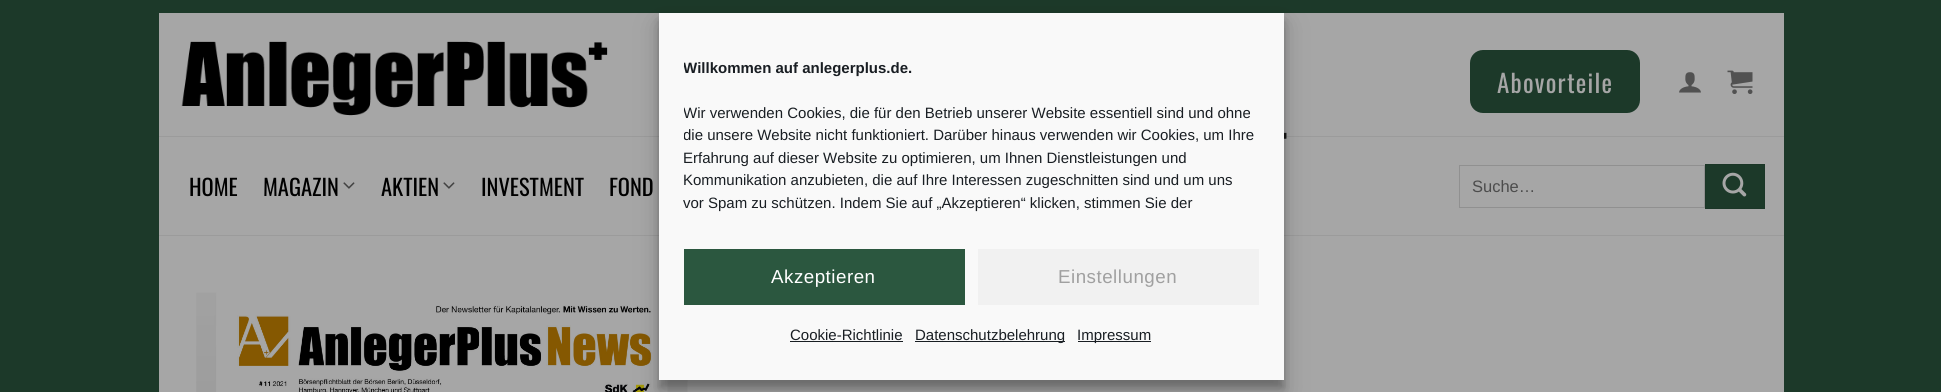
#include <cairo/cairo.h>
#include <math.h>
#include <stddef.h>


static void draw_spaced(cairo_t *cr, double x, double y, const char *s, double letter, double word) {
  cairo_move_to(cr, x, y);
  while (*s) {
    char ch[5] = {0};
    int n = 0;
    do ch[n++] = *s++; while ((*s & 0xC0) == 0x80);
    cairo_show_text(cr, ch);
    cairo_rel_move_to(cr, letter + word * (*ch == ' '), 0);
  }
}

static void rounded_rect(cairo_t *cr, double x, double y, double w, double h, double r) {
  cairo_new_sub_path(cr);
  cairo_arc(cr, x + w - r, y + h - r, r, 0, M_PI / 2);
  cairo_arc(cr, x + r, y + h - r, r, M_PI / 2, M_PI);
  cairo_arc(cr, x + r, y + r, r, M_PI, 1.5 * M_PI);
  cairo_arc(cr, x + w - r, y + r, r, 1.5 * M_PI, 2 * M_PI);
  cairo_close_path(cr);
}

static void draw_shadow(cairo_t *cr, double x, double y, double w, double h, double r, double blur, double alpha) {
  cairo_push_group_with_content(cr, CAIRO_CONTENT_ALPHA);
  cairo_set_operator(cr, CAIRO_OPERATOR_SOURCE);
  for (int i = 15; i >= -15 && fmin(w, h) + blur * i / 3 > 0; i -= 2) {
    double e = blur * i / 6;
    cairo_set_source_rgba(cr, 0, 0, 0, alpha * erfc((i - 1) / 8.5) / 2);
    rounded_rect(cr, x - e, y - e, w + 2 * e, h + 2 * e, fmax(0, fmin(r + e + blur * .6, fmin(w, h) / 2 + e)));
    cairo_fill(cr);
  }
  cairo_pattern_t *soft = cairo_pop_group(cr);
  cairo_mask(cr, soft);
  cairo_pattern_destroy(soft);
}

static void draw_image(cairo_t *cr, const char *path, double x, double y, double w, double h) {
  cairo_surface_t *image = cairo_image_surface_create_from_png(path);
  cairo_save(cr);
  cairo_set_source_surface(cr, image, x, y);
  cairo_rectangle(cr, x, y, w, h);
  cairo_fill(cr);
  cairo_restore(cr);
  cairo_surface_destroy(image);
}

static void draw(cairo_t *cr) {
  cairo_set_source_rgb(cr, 28 / 255.0, 57 / 255.0, 41 / 255.0);
  cairo_paint(cr);
  cairo_set_source_rgb(cr, 166 / 255.0, 166 / 255.0, 166 / 255.0);
  cairo_rectangle(cr, 159, 13, 1625, 379);
  cairo_fill(cr);
  cairo_set_source_rgb(cr, 155 / 255.0, 155 / 255.0, 155 / 255.0);
  cairo_rectangle(cr, 159, 136, 1625, 1);
  cairo_fill(cr);
  draw_image(cr, "images/2.png", 1284, 28, 3, 111);
  draw_image(cr, "images/3.png", 1284, 28, 3, 111);
  cairo_rectangle(cr, 159, 235, 1625, 1);
  cairo_fill(cr);
  draw_image(cr, "images/8.png", 196, 292, 492, 100);
  cairo_set_source_rgb(cr, 0, 0, 0);
  draw_shadow(cr, 659, 20, 625, 368, 0, 4, 0.23);
  draw_shadow(cr, 659, 25, 625, 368, 0, 12.5, 0.19);
  cairo_set_source_rgb(cr, 249 / 255.0, 249 / 255.0, 249 / 255.0);
  cairo_rectangle(cr, 659, 13, 625, 367);
  cairo_fill(cr);
  cairo_set_source_rgb(cr, 43 / 255.0, 87 / 255.0, 63 / 255.0);
  cairo_rectangle(cr, 684, 249, 281, 56);
  cairo_fill(cr);
  cairo_set_source_rgb(cr, 241 / 255.0, 241 / 255.0, 241 / 255.0);
  cairo_rectangle(cr, 978, 249, 281, 56);
  cairo_fill(cr);
  cairo_set_source_rgb(cr, 25 / 255.0, 30 / 255.0, 35 / 255.0);
  cairo_rectangle(cr, 790, 341, 113, 1);
  cairo_fill(cr);
  cairo_rectangle(cr, 915, 341, 150, 1);
  cairo_fill(cr);
  cairo_rectangle(cr, 1078, 341, 73, 1);
  cairo_fill(cr);
  draw_image(cr, "images/1.png", 181, 41, 427, 75);
  cairo_set_source_rgb(cr, 28 / 255.0, 57 / 255.0, 41 / 255.0);
  rounded_rect(cr, 1470, 50, 170, 63, 13);
  cairo_fill(cr);
  draw_image(cr, "images/4.png", 1679, 72, 22, 21);
  draw_image(cr, "images/5.png", 1727, 70, 26, 24);
  draw_image(cr, "images/6.png", 343, 182, 12, 7);
  draw_image(cr, "images/6.png", 443, 182, 12, 7);
  cairo_rectangle(cr, 1459.5, 165.5, 245, 42);
  cairo_set_source_rgb(cr, 144 / 255.0, 144 / 255.0, 144 / 255.0);
  cairo_set_line_width(cr, 1);
  cairo_stroke(cr);
  cairo_set_source_rgb(cr, 28 / 255.0, 57 / 255.0, 41 / 255.0);
  cairo_rectangle(cr, 1705.5, 164.5, 59, 44);
  cairo_fill_preserve(cr);
  cairo_set_source_rgb(cr, 27 / 255.0, 54 / 255.0, 39 / 255.0);
  cairo_stroke(cr);
  draw_image(cr, "images/7.png", 1722, 172, 25, 25);
  cairo_save(cr);
  cairo_rectangle(cr, 684, 56, 575, 168);
  cairo_clip(cr);
  cairo_select_font_face(cr, "Liberation Sans", CAIRO_FONT_SLANT_NORMAL, CAIRO_FONT_WEIGHT_BOLD);
  cairo_set_font_size(cr, 15);
  cairo_set_source_rgb(cr, 25 / 255.0, 30 / 255.0, 35 / 255.0);
  cairo_move_to(cr, 683, 73);
  cairo_show_text(cr, "Willkommen auf anlegerplus.de.");
  cairo_select_font_face(cr, "Liberation Sans", CAIRO_FONT_SLANT_NORMAL, CAIRO_FONT_WEIGHT_NORMAL);
  cairo_move_to(cr, 683, 118);
  cairo_show_text(cr, "Wir verwenden Cookies, die für den Betrieb unserer Website essentiell sind und ohne");
  cairo_move_to(cr, 683, 140);
  cairo_show_text(cr, "die unsere Website nicht funktioniert. Darüber hinaus verwenden wir Cookies, um Ihre");
  cairo_restore(cr);
  cairo_select_font_face(cr, "Liberation Sans", CAIRO_FONT_SLANT_NORMAL, CAIRO_FONT_WEIGHT_NORMAL);
  cairo_set_font_size(cr, 15);
  cairo_set_source_rgb(cr, 25 / 255.0, 30 / 255.0, 35 / 255.0);
  cairo_move_to(cr, 683, 163);
  cairo_show_text(cr, "Erfahrung auf dieser Website zu optimieren, um Ihnen Dienstleistungen und");
  cairo_move_to(cr, 683, 185);
  cairo_show_text(cr, "Kommunikation anzubieten, die auf Ihre Interessen zugeschnitten sind und um uns");
  cairo_move_to(cr, 683, 208);
  cairo_show_text(cr, "vor Spam zu schützen. Indem Sie auf „Akzeptieren“ klicken, stimmen Sie der");
  cairo_set_font_size(cr, 18.75);
  cairo_set_source_rgb(cr, 1, 1, 1);
  draw_spaced(cr, 771, 283, "Akzeptieren", 0.5, 0);
  cairo_set_source_rgb(cr, 160 / 255.0, 160 / 255.0, 160 / 255.0);
  draw_spaced(cr, 1058, 283, "Einstellungen", 0.5, 0);
  cairo_set_font_size(cr, 15);
  cairo_set_source_rgb(cr, 25 / 255.0, 30 / 255.0, 35 / 255.0);
  cairo_move_to(cr, 790, 340);
  cairo_show_text(cr, "Cookie-Richtlinie");
  cairo_move_to(cr, 915, 340);
  cairo_show_text(cr, "Datenschutzbelehrung");
  cairo_move_to(cr, 1077, 340);
  cairo_show_text(cr, "Impressum");
  cairo_select_font_face(cr, "Oswald", CAIRO_FONT_SLANT_NORMAL, CAIRO_FONT_WEIGHT_NORMAL);
  cairo_set_font_size(cr, 25);
  cairo_set_source_rgb(cr, 166 / 255.0, 166 / 255.0, 166 / 255.0);
  draw_spaced(cr, 1497, 93, "Abovorteile", 1.25, 0);
  cairo_set_font_size(cr, 22.5);
  cairo_set_source_rgb(cr, 0, 0, 0);
  cairo_move_to(cr, 189, 196);
  cairo_show_text(cr, "HOME");
  cairo_move_to(cr, 263, 196);
  cairo_show_text(cr, "MAGAZIN");
  cairo_move_to(cr, 381, 196);
  cairo_show_text(cr, "AKTIEN");
  cairo_move_to(cr, 481, 196);
  cairo_show_text(cr, "INVESTMENT");
  cairo_move_to(cr, 609, 196);
  cairo_show_text(cr, "FOND");
  cairo_select_font_face(cr, "Liberation Sans", CAIRO_FONT_SLANT_NORMAL, CAIRO_FONT_WEIGHT_NORMAL);
  cairo_set_font_size(cr, 16.5);
  cairo_set_source_rgb(cr, 76 / 255.0, 76 / 255.0, 76 / 255.0);
  cairo_move_to(cr, 1472, 192);
  cairo_show_text(cr, "Suche…");
}

int main(void) {
  cairo_surface_t *surface = cairo_image_surface_create(CAIRO_FORMAT_RGB24, 1941, 392);
  cairo_t *cr = cairo_create(surface);
  cairo_font_options_t *options = cairo_font_options_create();
  cairo_font_options_set_hint_metrics(options, CAIRO_HINT_METRICS_OFF);
  cairo_font_options_set_hint_style(options, CAIRO_HINT_STYLE_NONE);
  cairo_set_font_options(cr, options);
  cairo_set_miter_limit(cr, 4);
  draw(cr);
  cairo_surface_write_to_png(surface, "out.png");
  cairo_font_options_destroy(options);
  cairo_destroy(cr);
  cairo_surface_destroy(surface);
  return 0;
}
